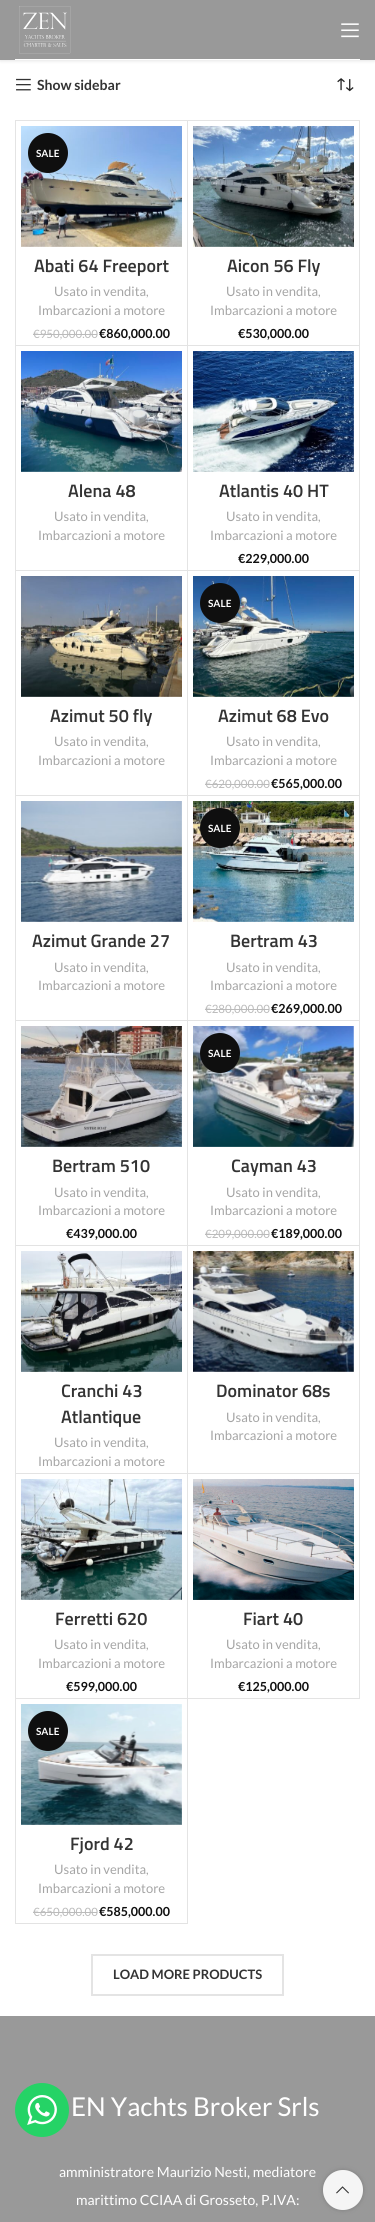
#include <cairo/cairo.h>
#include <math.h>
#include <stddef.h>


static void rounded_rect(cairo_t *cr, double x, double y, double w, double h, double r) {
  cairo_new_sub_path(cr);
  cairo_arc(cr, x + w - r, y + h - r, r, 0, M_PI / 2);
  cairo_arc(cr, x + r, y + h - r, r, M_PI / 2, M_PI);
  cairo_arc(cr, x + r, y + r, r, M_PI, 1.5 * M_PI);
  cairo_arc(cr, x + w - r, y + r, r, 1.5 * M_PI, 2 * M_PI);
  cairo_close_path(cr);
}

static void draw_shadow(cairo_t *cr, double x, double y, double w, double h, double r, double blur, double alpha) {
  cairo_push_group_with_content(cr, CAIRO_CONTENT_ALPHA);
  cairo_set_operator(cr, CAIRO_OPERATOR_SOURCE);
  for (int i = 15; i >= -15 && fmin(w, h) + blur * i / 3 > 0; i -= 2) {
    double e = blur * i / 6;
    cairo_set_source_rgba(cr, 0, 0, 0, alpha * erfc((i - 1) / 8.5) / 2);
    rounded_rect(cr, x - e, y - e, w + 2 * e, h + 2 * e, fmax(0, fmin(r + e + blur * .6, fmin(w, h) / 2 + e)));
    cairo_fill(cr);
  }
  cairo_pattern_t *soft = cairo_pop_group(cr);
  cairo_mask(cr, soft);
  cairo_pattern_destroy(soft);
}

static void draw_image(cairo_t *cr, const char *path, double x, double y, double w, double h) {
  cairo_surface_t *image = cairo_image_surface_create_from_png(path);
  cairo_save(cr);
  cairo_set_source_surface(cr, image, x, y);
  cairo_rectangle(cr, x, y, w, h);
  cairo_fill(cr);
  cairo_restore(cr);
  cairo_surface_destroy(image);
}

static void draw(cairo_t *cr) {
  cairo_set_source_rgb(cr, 1, 1, 1);
  cairo_paint(cr);
  cairo_set_source_rgb(cr, 0, 0, 0);
  draw_shadow(cr, 0, 1, 375, 60, 0, 1.5, 0.1);
  cairo_set_source_rgb(cr, 153 / 255.0, 153 / 255.0, 153 / 255.0);
  cairo_rectangle(cr, 0, 0, 375, 60);
  cairo_fill(cr);
  cairo_set_source_rgb(cr, 1, 1, 1);
  cairo_rectangle(cr, 15, 59, 345, 1);
  cairo_fill(cr);
  draw_image(cr, "images/1.png", 19, 6, 52, 48);
  draw_image(cr, "images/2.png", 341, 23, 18, 15);
  draw_image(cr, "images/3.png", 16, 78, 15, 13);
  draw_image(cr, "images/4.png", 337, 78, 17, 14);
  cairo_set_source_rgb(cr, 228 / 255.0, 228 / 255.0, 228 / 255.0);
  cairo_rectangle(cr, 15, 120, 1, 1804);
  cairo_fill(cr);
  cairo_new_path(cr);
  cairo_move_to(cr, 16, 120);
  cairo_line_to(cr, 188, 120);
  cairo_line_to(cr, 187, 121);
  cairo_line_to(cr, 16, 121);
  cairo_close_path(cr);
  cairo_fill(cr);
  cairo_set_source_rgba(cr, 0, 0, 0, 0.11);
  cairo_new_path(cr);
  cairo_move_to(cr, 188, 120);
  cairo_line_to(cr, 188, 346);
  cairo_line_to(cr, 187, 345);
  cairo_line_to(cr, 187, 121);
  cairo_close_path(cr);
  cairo_fill(cr);
  cairo_new_path(cr);
  cairo_move_to(cr, 188, 346);
  cairo_line_to(cr, 16, 346);
  cairo_line_to(cr, 16, 345);
  cairo_line_to(cr, 187, 345);
  cairo_close_path(cr);
  cairo_fill(cr);
  draw_image(cr, "images/5.png", 21, 126, 161, 121);
  cairo_set_source_rgb(cr, 15 / 255.0, 15 / 255.0, 15 / 255.0);
  cairo_arc(cr, 48, 153, 20, 0, 2 * M_PI);
  cairo_fill(cr);
  cairo_set_source_rgb(cr, 187 / 255.0, 187 / 255.0, 187 / 255.0);
  cairo_rectangle(cr, 33, 334, 64, 1);
  cairo_fill(cr);
  cairo_set_source_rgb(cr, 228 / 255.0, 228 / 255.0, 228 / 255.0);
  cairo_new_path(cr);
  cairo_move_to(cr, 188, 120);
  cairo_line_to(cr, 360, 120);
  cairo_line_to(cr, 359, 121);
  cairo_line_to(cr, 188, 121);
  cairo_close_path(cr);
  cairo_fill(cr);
  cairo_set_source_rgba(cr, 0, 0, 0, 0.11);
  cairo_new_path(cr);
  cairo_move_to(cr, 360, 120);
  cairo_line_to(cr, 360, 346);
  cairo_line_to(cr, 359, 345);
  cairo_line_to(cr, 359, 121);
  cairo_close_path(cr);
  cairo_fill(cr);
  cairo_new_path(cr);
  cairo_move_to(cr, 360, 346);
  cairo_line_to(cr, 188, 346);
  cairo_line_to(cr, 188, 345);
  cairo_line_to(cr, 359, 345);
  cairo_close_path(cr);
  cairo_fill(cr);
  draw_image(cr, "images/6.png", 193, 126, 161, 121);
  cairo_set_source_rgb(cr, 228 / 255.0, 228 / 255.0, 228 / 255.0);
  cairo_new_path(cr);
  cairo_move_to(cr, 188, 346);
  cairo_line_to(cr, 188, 571);
  cairo_line_to(cr, 187, 570);
  cairo_line_to(cr, 187, 346);
  cairo_close_path(cr);
  cairo_fill(cr);
  cairo_set_source_rgba(cr, 0, 0, 0, 0.11);
  cairo_new_path(cr);
  cairo_move_to(cr, 188, 571);
  cairo_line_to(cr, 16, 571);
  cairo_line_to(cr, 16, 570);
  cairo_line_to(cr, 187, 570);
  cairo_close_path(cr);
  cairo_fill(cr);
  draw_image(cr, "images/7.png", 21, 351, 161, 121);
  cairo_set_source_rgb(cr, 228 / 255.0, 228 / 255.0, 228 / 255.0);
  cairo_new_path(cr);
  cairo_move_to(cr, 360, 346);
  cairo_line_to(cr, 360, 571);
  cairo_line_to(cr, 359, 570);
  cairo_line_to(cr, 359, 346);
  cairo_close_path(cr);
  cairo_fill(cr);
  cairo_set_source_rgba(cr, 0, 0, 0, 0.11);
  cairo_new_path(cr);
  cairo_move_to(cr, 360, 571);
  cairo_line_to(cr, 188, 571);
  cairo_line_to(cr, 188, 570);
  cairo_line_to(cr, 359, 570);
  cairo_close_path(cr);
  cairo_fill(cr);
  draw_image(cr, "images/8.png", 193, 351, 161, 121);
  cairo_set_source_rgb(cr, 228 / 255.0, 228 / 255.0, 228 / 255.0);
  cairo_new_path(cr);
  cairo_move_to(cr, 188, 571);
  cairo_line_to(cr, 188, 796);
  cairo_line_to(cr, 187, 795);
  cairo_line_to(cr, 187, 571);
  cairo_close_path(cr);
  cairo_fill(cr);
  cairo_set_source_rgba(cr, 0, 0, 0, 0.11);
  cairo_new_path(cr);
  cairo_move_to(cr, 188, 796);
  cairo_line_to(cr, 16, 796);
  cairo_line_to(cr, 16, 795);
  cairo_line_to(cr, 187, 795);
  cairo_close_path(cr);
  cairo_fill(cr);
  draw_image(cr, "images/9.png", 21, 576, 161, 121);
  cairo_set_source_rgb(cr, 228 / 255.0, 228 / 255.0, 228 / 255.0);
  cairo_new_path(cr);
  cairo_move_to(cr, 360, 571);
  cairo_line_to(cr, 360, 796);
  cairo_line_to(cr, 359, 795);
  cairo_line_to(cr, 359, 571);
  cairo_close_path(cr);
  cairo_fill(cr);
  cairo_set_source_rgba(cr, 0, 0, 0, 0.11);
  cairo_new_path(cr);
  cairo_move_to(cr, 360, 796);
  cairo_line_to(cr, 188, 796);
  cairo_line_to(cr, 188, 795);
  cairo_line_to(cr, 359, 795);
  cairo_close_path(cr);
  cairo_fill(cr);
  draw_image(cr, "images/10.png", 193, 576, 161, 121);
  cairo_set_source_rgb(cr, 15 / 255.0, 15 / 255.0, 15 / 255.0);
  cairo_arc(cr, 220, 603, 20, 0, 2 * M_PI);
  cairo_fill(cr);
  cairo_set_source_rgb(cr, 187 / 255.0, 187 / 255.0, 187 / 255.0);
  cairo_rectangle(cr, 205, 784, 64, 1);
  cairo_fill(cr);
  cairo_set_source_rgb(cr, 228 / 255.0, 228 / 255.0, 228 / 255.0);
  cairo_new_path(cr);
  cairo_move_to(cr, 188, 796);
  cairo_line_to(cr, 188, 1021);
  cairo_line_to(cr, 187, 1020);
  cairo_line_to(cr, 187, 796);
  cairo_close_path(cr);
  cairo_fill(cr);
  cairo_set_source_rgba(cr, 0, 0, 0, 0.11);
  cairo_new_path(cr);
  cairo_move_to(cr, 188, 1021);
  cairo_line_to(cr, 16, 1021);
  cairo_line_to(cr, 16, 1020);
  cairo_line_to(cr, 187, 1020);
  cairo_close_path(cr);
  cairo_fill(cr);
  draw_image(cr, "images/11.png", 21, 801, 161, 121);
  cairo_set_source_rgb(cr, 228 / 255.0, 228 / 255.0, 228 / 255.0);
  cairo_new_path(cr);
  cairo_move_to(cr, 360, 796);
  cairo_line_to(cr, 360, 1021);
  cairo_line_to(cr, 359, 1020);
  cairo_line_to(cr, 359, 796);
  cairo_close_path(cr);
  cairo_fill(cr);
  cairo_set_source_rgba(cr, 0, 0, 0, 0.11);
  cairo_new_path(cr);
  cairo_move_to(cr, 360, 1021);
  cairo_line_to(cr, 188, 1021);
  cairo_line_to(cr, 188, 1020);
  cairo_line_to(cr, 359, 1020);
  cairo_close_path(cr);
  cairo_fill(cr);
  draw_image(cr, "images/12.png", 193, 801, 161, 121);
  cairo_set_source_rgb(cr, 15 / 255.0, 15 / 255.0, 15 / 255.0);
  cairo_arc(cr, 220, 828, 20, 0, 2 * M_PI);
  cairo_fill(cr);
  cairo_set_source_rgb(cr, 187 / 255.0, 187 / 255.0, 187 / 255.0);
  cairo_rectangle(cr, 205, 1009, 64, 1);
  cairo_fill(cr);
  cairo_set_source_rgb(cr, 228 / 255.0, 228 / 255.0, 228 / 255.0);
  cairo_new_path(cr);
  cairo_move_to(cr, 188, 1021);
  cairo_line_to(cr, 188, 1246);
  cairo_line_to(cr, 187, 1245);
  cairo_line_to(cr, 187, 1021);
  cairo_close_path(cr);
  cairo_fill(cr);
  cairo_set_source_rgba(cr, 0, 0, 0, 0.11);
  cairo_new_path(cr);
  cairo_move_to(cr, 188, 1246);
  cairo_line_to(cr, 16, 1246);
  cairo_line_to(cr, 16, 1245);
  cairo_line_to(cr, 187, 1245);
  cairo_close_path(cr);
  cairo_fill(cr);
  draw_image(cr, "images/13.png", 21, 1026, 161, 121);
  cairo_set_source_rgb(cr, 228 / 255.0, 228 / 255.0, 228 / 255.0);
  cairo_new_path(cr);
  cairo_move_to(cr, 360, 1021);
  cairo_line_to(cr, 360, 1246);
  cairo_line_to(cr, 359, 1245);
  cairo_line_to(cr, 359, 1021);
  cairo_close_path(cr);
  cairo_fill(cr);
  cairo_set_source_rgba(cr, 0, 0, 0, 0.11);
  cairo_new_path(cr);
  cairo_move_to(cr, 360, 1246);
  cairo_line_to(cr, 188, 1246);
  cairo_line_to(cr, 188, 1245);
  cairo_line_to(cr, 359, 1245);
  cairo_close_path(cr);
  cairo_fill(cr);
  draw_image(cr, "images/14.png", 193, 1026, 161, 121);
  cairo_set_source_rgb(cr, 15 / 255.0, 15 / 255.0, 15 / 255.0);
  cairo_arc(cr, 220, 1053, 20, 0, 2 * M_PI);
  cairo_fill(cr);
  cairo_set_source_rgb(cr, 187 / 255.0, 187 / 255.0, 187 / 255.0);
  cairo_rectangle(cr, 205, 1234, 64, 1);
  cairo_fill(cr);
  cairo_set_source_rgb(cr, 228 / 255.0, 228 / 255.0, 228 / 255.0);
  cairo_new_path(cr);
  cairo_move_to(cr, 188, 1246);
  cairo_line_to(cr, 188, 1474);
  cairo_line_to(cr, 187, 1473);
  cairo_line_to(cr, 187, 1246);
  cairo_close_path(cr);
  cairo_fill(cr);
  cairo_set_source_rgba(cr, 0, 0, 0, 0.11);
  cairo_new_path(cr);
  cairo_move_to(cr, 188, 1474);
  cairo_line_to(cr, 16, 1474);
  cairo_line_to(cr, 16, 1473);
  cairo_line_to(cr, 187, 1473);
  cairo_close_path(cr);
  cairo_fill(cr);
  draw_image(cr, "images/15.png", 21, 1251, 161, 121);
  cairo_set_source_rgb(cr, 228 / 255.0, 228 / 255.0, 228 / 255.0);
  cairo_new_path(cr);
  cairo_move_to(cr, 360, 1246);
  cairo_line_to(cr, 360, 1474);
  cairo_line_to(cr, 359, 1473);
  cairo_line_to(cr, 359, 1246);
  cairo_close_path(cr);
  cairo_fill(cr);
  cairo_set_source_rgba(cr, 0, 0, 0, 0.11);
  cairo_new_path(cr);
  cairo_move_to(cr, 360, 1474);
  cairo_line_to(cr, 188, 1474);
  cairo_line_to(cr, 188, 1473);
  cairo_line_to(cr, 359, 1473);
  cairo_close_path(cr);
  cairo_fill(cr);
  draw_image(cr, "images/16.png", 193, 1251, 161, 121);
  cairo_set_source_rgb(cr, 228 / 255.0, 228 / 255.0, 228 / 255.0);
  cairo_new_path(cr);
  cairo_move_to(cr, 188, 1474);
  cairo_line_to(cr, 188, 1699);
  cairo_line_to(cr, 187, 1698);
  cairo_line_to(cr, 187, 1474);
  cairo_close_path(cr);
  cairo_fill(cr);
  cairo_set_source_rgba(cr, 0, 0, 0, 0.11);
  cairo_new_path(cr);
  cairo_move_to(cr, 188, 1699);
  cairo_line_to(cr, 16, 1699);
  cairo_line_to(cr, 16, 1698);
  cairo_line_to(cr, 187, 1698);
  cairo_close_path(cr);
  cairo_fill(cr);
  draw_image(cr, "images/17.png", 21, 1479, 161, 121);
  cairo_set_source_rgb(cr, 228 / 255.0, 228 / 255.0, 228 / 255.0);
  cairo_new_path(cr);
  cairo_move_to(cr, 360, 1474);
  cairo_line_to(cr, 360, 1699);
  cairo_line_to(cr, 359, 1698);
  cairo_line_to(cr, 359, 1474);
  cairo_close_path(cr);
  cairo_fill(cr);
  cairo_set_source_rgba(cr, 0, 0, 0, 0.11);
  cairo_new_path(cr);
  cairo_move_to(cr, 360, 1699);
  cairo_line_to(cr, 188, 1699);
  cairo_line_to(cr, 188, 1698);
  cairo_line_to(cr, 359, 1698);
  cairo_close_path(cr);
  cairo_fill(cr);
  draw_image(cr, "images/18.png", 193, 1479, 161, 121);
  cairo_set_source_rgb(cr, 228 / 255.0, 228 / 255.0, 228 / 255.0);
  cairo_new_path(cr);
  cairo_move_to(cr, 188, 1699);
  cairo_line_to(cr, 188, 1924);
  cairo_line_to(cr, 187, 1923);
  cairo_line_to(cr, 187, 1699);
  cairo_close_path(cr);
  cairo_fill(cr);
  cairo_set_source_rgba(cr, 0, 0, 0, 0.11);
  cairo_new_path(cr);
  cairo_move_to(cr, 188, 1924);
  cairo_line_to(cr, 16, 1924);
  cairo_line_to(cr, 16, 1923);
  cairo_line_to(cr, 187, 1923);
  cairo_close_path(cr);
  cairo_fill(cr);
  draw_image(cr, "images/19.png", 21, 1704, 161, 121);
  cairo_set_source_rgb(cr, 15 / 255.0, 15 / 255.0, 15 / 255.0);
  cairo_arc(cr, 48, 1731, 20, 0, 2 * M_PI);
  cairo_fill(cr);
  cairo_set_source_rgb(cr, 187 / 255.0, 187 / 255.0, 187 / 255.0);
  cairo_rectangle(cr, 33, 1912, 64, 1);
  cairo_fill(cr);
  cairo_rectangle(cr, 92, 1955, 191, 40);
  cairo_set_source_rgb(cr, 228 / 255.0, 228 / 255.0, 228 / 255.0);
  cairo_stroke(cr);
  cairo_set_source_rgb(cr, 153 / 255.0, 153 / 255.0, 153 / 255.0);
  cairo_rectangle(cr, 0, 2016, 375, 206);
  cairo_fill(cr);
  cairo_set_source_rgb(cr, 37 / 255.0, 211 / 255.0, 102 / 255.0);
  cairo_arc(cr, 42, 2110, 27, 0, 2 * M_PI);
  cairo_fill(cr);
  draw_image(cr, "images/20.png", 27, 2095, 30, 30);
  cairo_save(cr);
  cairo_set_fill_rule(cr, CAIRO_FILL_RULE_EVEN_ODD);
  cairo_new_path(cr);
  cairo_move_to(cr, 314, 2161);
  cairo_line_to(cr, 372, 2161);
  cairo_line_to(cr, 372, 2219);
  cairo_line_to(cr, 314, 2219);
  cairo_close_path(cr);
  cairo_move_to(cr, 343, 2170);
  cairo_curve_to(cr, 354, 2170, 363, 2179, 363, 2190);
  cairo_curve_to(cr, 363, 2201, 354, 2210, 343, 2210);
  cairo_curve_to(cr, 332, 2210, 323, 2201, 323, 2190);
  cairo_curve_to(cr, 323, 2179, 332, 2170, 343, 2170);
  cairo_close_path(cr);
  cairo_clip(cr);
  cairo_set_source_rgb(cr, 0, 0, 0);
  draw_shadow(cr, 323, 2170, 40, 40, 20, 2.5, 0.17);
  cairo_restore(cr);
  cairo_set_source_rgba(cr, 1, 1, 1, 0.9);
  cairo_arc(cr, 343, 2190, 20, 0, 2 * M_PI);
  cairo_fill(cr);
  draw_image(cr, "images/21.png", 336, 2186, 13, 8);
  cairo_select_font_face(cr, "Lato", CAIRO_FONT_SLANT_NORMAL, CAIRO_FONT_WEIGHT_BOLD);
  cairo_set_font_size(cr, 14);
  cairo_set_source_rgb(cr, 51 / 255.0, 51 / 255.0, 51 / 255.0);
  cairo_move_to(cr, 37, 90);
  cairo_show_text(cr, "Show sidebar");
  cairo_set_font_size(cr, 10);
  cairo_set_source_rgb(cr, 1, 1, 1);
  cairo_move_to(cr, 36, 157);
  cairo_show_text(cr, "SALE");
  cairo_select_font_face(cr, "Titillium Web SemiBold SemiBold", CAIRO_FONT_SLANT_NORMAL, CAIRO_FONT_WEIGHT_NORMAL);
  cairo_set_font_size(cr, 18);
  cairo_set_source_rgb(cr, 51 / 255.0, 51 / 255.0, 51 / 255.0);
  cairo_move_to(cr, 34, 272);
  cairo_show_text(cr, "Abati 64 Freeport");
  cairo_select_font_face(cr, "Lato", CAIRO_FONT_SLANT_NORMAL, CAIRO_FONT_WEIGHT_NORMAL);
  cairo_set_font_size(cr, 13);
  cairo_set_source_rgb(cr, 165 / 255.0, 165 / 255.0, 165 / 255.0);
  cairo_move_to(cr, 54, 296);
  cairo_show_text(cr, "Usato in vendita");
  cairo_set_font_size(cr, 12);
  cairo_move_to(cr, 146, 296);
  cairo_show_text(cr, ",");
  cairo_set_font_size(cr, 13);
  cairo_move_to(cr, 38, 315);
  cairo_show_text(cr, "Imbarcazioni a motore");
  cairo_set_font_size(cr, 11.5);
  cairo_set_source_rgb(cr, 187 / 255.0, 187 / 255.0, 187 / 255.0);
  cairo_move_to(cr, 33, 338);
  cairo_show_text(cr, "€950,000.00");
  cairo_select_font_face(cr, "Lato", CAIRO_FONT_SLANT_NORMAL, CAIRO_FONT_WEIGHT_BOLD);
  cairo_set_font_size(cr, 12.5);
  cairo_set_source_rgb(cr, 15 / 255.0, 15 / 255.0, 15 / 255.0);
  cairo_move_to(cr, 99, 338);
  cairo_show_text(cr, "€860,000.00");
  cairo_select_font_face(cr, "Titillium Web SemiBold SemiBold", CAIRO_FONT_SLANT_NORMAL, CAIRO_FONT_WEIGHT_NORMAL);
  cairo_set_font_size(cr, 18);
  cairo_set_source_rgb(cr, 51 / 255.0, 51 / 255.0, 51 / 255.0);
  cairo_move_to(cr, 227, 272);
  cairo_show_text(cr, "Aicon 56 Fly");
  cairo_select_font_face(cr, "Lato", CAIRO_FONT_SLANT_NORMAL, CAIRO_FONT_WEIGHT_NORMAL);
  cairo_set_font_size(cr, 13);
  cairo_set_source_rgb(cr, 165 / 255.0, 165 / 255.0, 165 / 255.0);
  cairo_move_to(cr, 226, 296);
  cairo_show_text(cr, "Usato in vendita");
  cairo_set_font_size(cr, 12);
  cairo_move_to(cr, 318, 296);
  cairo_show_text(cr, ",");
  cairo_set_font_size(cr, 13);
  cairo_move_to(cr, 210, 315);
  cairo_show_text(cr, "Imbarcazioni a motore");
  cairo_select_font_face(cr, "Lato", CAIRO_FONT_SLANT_NORMAL, CAIRO_FONT_WEIGHT_BOLD);
  cairo_set_font_size(cr, 12.5);
  cairo_set_source_rgb(cr, 15 / 255.0, 15 / 255.0, 15 / 255.0);
  cairo_move_to(cr, 238, 338);
  cairo_show_text(cr, "€530,000.00");
  cairo_select_font_face(cr, "Titillium Web SemiBold SemiBold", CAIRO_FONT_SLANT_NORMAL, CAIRO_FONT_WEIGHT_NORMAL);
  cairo_set_font_size(cr, 18);
  cairo_set_source_rgb(cr, 51 / 255.0, 51 / 255.0, 51 / 255.0);
  cairo_move_to(cr, 68, 497);
  cairo_show_text(cr, "Alena 48");
  cairo_select_font_face(cr, "Lato", CAIRO_FONT_SLANT_NORMAL, CAIRO_FONT_WEIGHT_NORMAL);
  cairo_set_font_size(cr, 13);
  cairo_set_source_rgb(cr, 165 / 255.0, 165 / 255.0, 165 / 255.0);
  cairo_move_to(cr, 54, 521);
  cairo_show_text(cr, "Usato in vendita");
  cairo_set_font_size(cr, 12);
  cairo_move_to(cr, 146, 521);
  cairo_show_text(cr, ",");
  cairo_set_font_size(cr, 13);
  cairo_move_to(cr, 38, 540);
  cairo_show_text(cr, "Imbarcazioni a motore");
  cairo_select_font_face(cr, "Titillium Web SemiBold SemiBold", CAIRO_FONT_SLANT_NORMAL, CAIRO_FONT_WEIGHT_NORMAL);
  cairo_set_font_size(cr, 18);
  cairo_set_source_rgb(cr, 51 / 255.0, 51 / 255.0, 51 / 255.0);
  cairo_move_to(cr, 219, 497);
  cairo_show_text(cr, "Atlantis 40 HT");
  cairo_select_font_face(cr, "Lato", CAIRO_FONT_SLANT_NORMAL, CAIRO_FONT_WEIGHT_NORMAL);
  cairo_set_font_size(cr, 13);
  cairo_set_source_rgb(cr, 165 / 255.0, 165 / 255.0, 165 / 255.0);
  cairo_move_to(cr, 226, 521);
  cairo_show_text(cr, "Usato in vendita");
  cairo_set_font_size(cr, 12);
  cairo_move_to(cr, 318, 521);
  cairo_show_text(cr, ",");
  cairo_set_font_size(cr, 13);
  cairo_move_to(cr, 210, 540);
  cairo_show_text(cr, "Imbarcazioni a motore");
  cairo_select_font_face(cr, "Lato", CAIRO_FONT_SLANT_NORMAL, CAIRO_FONT_WEIGHT_BOLD);
  cairo_set_font_size(cr, 12.5);
  cairo_set_source_rgb(cr, 15 / 255.0, 15 / 255.0, 15 / 255.0);
  cairo_move_to(cr, 238, 563);
  cairo_show_text(cr, "€229,000.00");
  cairo_select_font_face(cr, "Titillium Web SemiBold SemiBold", CAIRO_FONT_SLANT_NORMAL, CAIRO_FONT_WEIGHT_NORMAL);
  cairo_set_font_size(cr, 18);
  cairo_set_source_rgb(cr, 51 / 255.0, 51 / 255.0, 51 / 255.0);
  cairo_move_to(cr, 50, 722);
  cairo_show_text(cr, "Azimut 50 fly");
  cairo_select_font_face(cr, "Lato", CAIRO_FONT_SLANT_NORMAL, CAIRO_FONT_WEIGHT_NORMAL);
  cairo_set_font_size(cr, 13);
  cairo_set_source_rgb(cr, 165 / 255.0, 165 / 255.0, 165 / 255.0);
  cairo_move_to(cr, 54, 746);
  cairo_show_text(cr, "Usato in vendita");
  cairo_set_font_size(cr, 12);
  cairo_move_to(cr, 146, 746);
  cairo_show_text(cr, ",");
  cairo_set_font_size(cr, 13);
  cairo_move_to(cr, 38, 765);
  cairo_show_text(cr, "Imbarcazioni a motore");
  cairo_select_font_face(cr, "Lato", CAIRO_FONT_SLANT_NORMAL, CAIRO_FONT_WEIGHT_BOLD);
  cairo_set_font_size(cr, 10);
  cairo_set_source_rgb(cr, 1, 1, 1);
  cairo_move_to(cr, 208, 607);
  cairo_show_text(cr, "SALE");
  cairo_select_font_face(cr, "Titillium Web SemiBold SemiBold", CAIRO_FONT_SLANT_NORMAL, CAIRO_FONT_WEIGHT_NORMAL);
  cairo_set_font_size(cr, 18);
  cairo_set_source_rgb(cr, 51 / 255.0, 51 / 255.0, 51 / 255.0);
  cairo_move_to(cr, 218, 722);
  cairo_show_text(cr, "Azimut 68 Evo");
  cairo_select_font_face(cr, "Lato", CAIRO_FONT_SLANT_NORMAL, CAIRO_FONT_WEIGHT_NORMAL);
  cairo_set_font_size(cr, 13);
  cairo_set_source_rgb(cr, 165 / 255.0, 165 / 255.0, 165 / 255.0);
  cairo_move_to(cr, 226, 746);
  cairo_show_text(cr, "Usato in vendita");
  cairo_set_font_size(cr, 12);
  cairo_move_to(cr, 318, 746);
  cairo_show_text(cr, ",");
  cairo_set_font_size(cr, 13);
  cairo_move_to(cr, 210, 765);
  cairo_show_text(cr, "Imbarcazioni a motore");
  cairo_set_font_size(cr, 11.5);
  cairo_set_source_rgb(cr, 187 / 255.0, 187 / 255.0, 187 / 255.0);
  cairo_move_to(cr, 205, 788);
  cairo_show_text(cr, "€620,000.00");
  cairo_select_font_face(cr, "Lato", CAIRO_FONT_SLANT_NORMAL, CAIRO_FONT_WEIGHT_BOLD);
  cairo_set_font_size(cr, 12.5);
  cairo_set_source_rgb(cr, 15 / 255.0, 15 / 255.0, 15 / 255.0);
  cairo_move_to(cr, 271, 788);
  cairo_show_text(cr, "€565,000.00");
  cairo_select_font_face(cr, "Titillium Web SemiBold SemiBold", CAIRO_FONT_SLANT_NORMAL, CAIRO_FONT_WEIGHT_NORMAL);
  cairo_set_font_size(cr, 18);
  cairo_set_source_rgb(cr, 51 / 255.0, 51 / 255.0, 51 / 255.0);
  cairo_move_to(cr, 32, 947);
  cairo_show_text(cr, "Azimut Grande 27");
  cairo_select_font_face(cr, "Lato", CAIRO_FONT_SLANT_NORMAL, CAIRO_FONT_WEIGHT_NORMAL);
  cairo_set_font_size(cr, 13);
  cairo_set_source_rgb(cr, 165 / 255.0, 165 / 255.0, 165 / 255.0);
  cairo_move_to(cr, 54, 972);
  cairo_show_text(cr, "Usato in vendita");
  cairo_set_font_size(cr, 12);
  cairo_move_to(cr, 146, 972);
  cairo_show_text(cr, ",");
  cairo_set_font_size(cr, 13);
  cairo_move_to(cr, 38, 990);
  cairo_show_text(cr, "Imbarcazioni a motore");
  cairo_select_font_face(cr, "Lato", CAIRO_FONT_SLANT_NORMAL, CAIRO_FONT_WEIGHT_BOLD);
  cairo_set_font_size(cr, 10);
  cairo_set_source_rgb(cr, 1, 1, 1);
  cairo_move_to(cr, 208, 832);
  cairo_show_text(cr, "SALE");
  cairo_select_font_face(cr, "Titillium Web SemiBold SemiBold", CAIRO_FONT_SLANT_NORMAL, CAIRO_FONT_WEIGHT_NORMAL);
  cairo_set_font_size(cr, 18);
  cairo_set_source_rgb(cr, 51 / 255.0, 51 / 255.0, 51 / 255.0);
  cairo_move_to(cr, 230, 947);
  cairo_show_text(cr, "Bertram 43");
  cairo_select_font_face(cr, "Lato", CAIRO_FONT_SLANT_NORMAL, CAIRO_FONT_WEIGHT_NORMAL);
  cairo_set_font_size(cr, 13);
  cairo_set_source_rgb(cr, 165 / 255.0, 165 / 255.0, 165 / 255.0);
  cairo_move_to(cr, 226, 972);
  cairo_show_text(cr, "Usato in vendita");
  cairo_set_font_size(cr, 12);
  cairo_move_to(cr, 318, 972);
  cairo_show_text(cr, ",");
  cairo_set_font_size(cr, 13);
  cairo_move_to(cr, 210, 990);
  cairo_show_text(cr, "Imbarcazioni a motore");
  cairo_set_font_size(cr, 11.5);
  cairo_set_source_rgb(cr, 187 / 255.0, 187 / 255.0, 187 / 255.0);
  cairo_move_to(cr, 205, 1013);
  cairo_show_text(cr, "€280,000.00");
  cairo_select_font_face(cr, "Lato", CAIRO_FONT_SLANT_NORMAL, CAIRO_FONT_WEIGHT_BOLD);
  cairo_set_font_size(cr, 12.5);
  cairo_set_source_rgb(cr, 15 / 255.0, 15 / 255.0, 15 / 255.0);
  cairo_move_to(cr, 271, 1013);
  cairo_show_text(cr, "€269,000.00");
  cairo_select_font_face(cr, "Titillium Web SemiBold SemiBold", CAIRO_FONT_SLANT_NORMAL, CAIRO_FONT_WEIGHT_NORMAL);
  cairo_set_font_size(cr, 18);
  cairo_set_source_rgb(cr, 51 / 255.0, 51 / 255.0, 51 / 255.0);
  cairo_move_to(cr, 52, 1172);
  cairo_show_text(cr, "Bertram 510");
  cairo_select_font_face(cr, "Lato", CAIRO_FONT_SLANT_NORMAL, CAIRO_FONT_WEIGHT_NORMAL);
  cairo_set_font_size(cr, 13);
  cairo_set_source_rgb(cr, 165 / 255.0, 165 / 255.0, 165 / 255.0);
  cairo_move_to(cr, 54, 1197);
  cairo_show_text(cr, "Usato in vendita");
  cairo_set_font_size(cr, 12);
  cairo_move_to(cr, 146, 1197);
  cairo_show_text(cr, ",");
  cairo_set_font_size(cr, 13);
  cairo_move_to(cr, 38, 1215);
  cairo_show_text(cr, "Imbarcazioni a motore");
  cairo_select_font_face(cr, "Lato", CAIRO_FONT_SLANT_NORMAL, CAIRO_FONT_WEIGHT_BOLD);
  cairo_set_font_size(cr, 12.5);
  cairo_set_source_rgb(cr, 15 / 255.0, 15 / 255.0, 15 / 255.0);
  cairo_move_to(cr, 66, 1238);
  cairo_show_text(cr, "€439,000.00");
  cairo_set_font_size(cr, 10);
  cairo_set_source_rgb(cr, 1, 1, 1);
  cairo_move_to(cr, 208, 1057);
  cairo_show_text(cr, "SALE");
  cairo_select_font_face(cr, "Titillium Web SemiBold SemiBold", CAIRO_FONT_SLANT_NORMAL, CAIRO_FONT_WEIGHT_NORMAL);
  cairo_set_font_size(cr, 18);
  cairo_set_source_rgb(cr, 51 / 255.0, 51 / 255.0, 51 / 255.0);
  cairo_move_to(cr, 231, 1172);
  cairo_show_text(cr, "Cayman 43");
  cairo_select_font_face(cr, "Lato", CAIRO_FONT_SLANT_NORMAL, CAIRO_FONT_WEIGHT_NORMAL);
  cairo_set_font_size(cr, 13);
  cairo_set_source_rgb(cr, 165 / 255.0, 165 / 255.0, 165 / 255.0);
  cairo_move_to(cr, 226, 1197);
  cairo_show_text(cr, "Usato in vendita");
  cairo_set_font_size(cr, 12);
  cairo_move_to(cr, 318, 1197);
  cairo_show_text(cr, ",");
  cairo_set_font_size(cr, 13);
  cairo_move_to(cr, 210, 1215);
  cairo_show_text(cr, "Imbarcazioni a motore");
  cairo_set_font_size(cr, 11.5);
  cairo_set_source_rgb(cr, 187 / 255.0, 187 / 255.0, 187 / 255.0);
  cairo_move_to(cr, 205, 1238);
  cairo_show_text(cr, "€209,000.00");
  cairo_select_font_face(cr, "Lato", CAIRO_FONT_SLANT_NORMAL, CAIRO_FONT_WEIGHT_BOLD);
  cairo_set_font_size(cr, 12.5);
  cairo_set_source_rgb(cr, 15 / 255.0, 15 / 255.0, 15 / 255.0);
  cairo_move_to(cr, 271, 1238);
  cairo_show_text(cr, "€189,000.00");
  cairo_select_font_face(cr, "Titillium Web SemiBold SemiBold", CAIRO_FONT_SLANT_NORMAL, CAIRO_FONT_WEIGHT_NORMAL);
  cairo_set_font_size(cr, 18);
  cairo_set_source_rgb(cr, 51 / 255.0, 51 / 255.0, 51 / 255.0);
  cairo_move_to(cr, 61, 1397);
  cairo_show_text(cr, "Cranchi 43");
  cairo_move_to(cr, 61, 1423);
  cairo_show_text(cr, "Atlantique");
  cairo_select_font_face(cr, "Lato", CAIRO_FONT_SLANT_NORMAL, CAIRO_FONT_WEIGHT_NORMAL);
  cairo_set_font_size(cr, 13);
  cairo_set_source_rgb(cr, 165 / 255.0, 165 / 255.0, 165 / 255.0);
  cairo_move_to(cr, 54, 1447);
  cairo_show_text(cr, "Usato in vendita");
  cairo_set_font_size(cr, 12);
  cairo_move_to(cr, 146, 1447);
  cairo_show_text(cr, ",");
  cairo_set_font_size(cr, 13);
  cairo_move_to(cr, 38, 1466);
  cairo_show_text(cr, "Imbarcazioni a motore");
  cairo_select_font_face(cr, "Titillium Web SemiBold SemiBold", CAIRO_FONT_SLANT_NORMAL, CAIRO_FONT_WEIGHT_NORMAL);
  cairo_set_font_size(cr, 18);
  cairo_set_source_rgb(cr, 51 / 255.0, 51 / 255.0, 51 / 255.0);
  cairo_move_to(cr, 216, 1397);
  cairo_show_text(cr, "Dominator 68s");
  cairo_select_font_face(cr, "Lato", CAIRO_FONT_SLANT_NORMAL, CAIRO_FONT_WEIGHT_NORMAL);
  cairo_set_font_size(cr, 13);
  cairo_set_source_rgb(cr, 165 / 255.0, 165 / 255.0, 165 / 255.0);
  cairo_move_to(cr, 226, 1422);
  cairo_show_text(cr, "Usato in vendita");
  cairo_set_font_size(cr, 12);
  cairo_move_to(cr, 318, 1422);
  cairo_show_text(cr, ",");
  cairo_set_font_size(cr, 13);
  cairo_move_to(cr, 210, 1440);
  cairo_show_text(cr, "Imbarcazioni a motore");
  cairo_select_font_face(cr, "Titillium Web SemiBold SemiBold", CAIRO_FONT_SLANT_NORMAL, CAIRO_FONT_WEIGHT_NORMAL);
  cairo_set_font_size(cr, 18);
  cairo_set_source_rgb(cr, 51 / 255.0, 51 / 255.0, 51 / 255.0);
  cairo_move_to(cr, 55, 1625);
  cairo_show_text(cr, "Ferretti 620");
  cairo_select_font_face(cr, "Lato", CAIRO_FONT_SLANT_NORMAL, CAIRO_FONT_WEIGHT_NORMAL);
  cairo_set_font_size(cr, 13);
  cairo_set_source_rgb(cr, 165 / 255.0, 165 / 255.0, 165 / 255.0);
  cairo_move_to(cr, 54, 1649);
  cairo_show_text(cr, "Usato in vendita");
  cairo_set_font_size(cr, 12);
  cairo_move_to(cr, 146, 1649);
  cairo_show_text(cr, ",");
  cairo_set_font_size(cr, 13);
  cairo_move_to(cr, 38, 1668);
  cairo_show_text(cr, "Imbarcazioni a motore");
  cairo_select_font_face(cr, "Lato", CAIRO_FONT_SLANT_NORMAL, CAIRO_FONT_WEIGHT_BOLD);
  cairo_set_font_size(cr, 12.5);
  cairo_set_source_rgb(cr, 15 / 255.0, 15 / 255.0, 15 / 255.0);
  cairo_move_to(cr, 66, 1691);
  cairo_show_text(cr, "€599,000.00");
  cairo_select_font_face(cr, "Titillium Web SemiBold SemiBold", CAIRO_FONT_SLANT_NORMAL, CAIRO_FONT_WEIGHT_NORMAL);
  cairo_set_font_size(cr, 18);
  cairo_set_source_rgb(cr, 51 / 255.0, 51 / 255.0, 51 / 255.0);
  cairo_move_to(cr, 243, 1625);
  cairo_show_text(cr, "Fiart 40");
  cairo_select_font_face(cr, "Lato", CAIRO_FONT_SLANT_NORMAL, CAIRO_FONT_WEIGHT_NORMAL);
  cairo_set_font_size(cr, 13);
  cairo_set_source_rgb(cr, 165 / 255.0, 165 / 255.0, 165 / 255.0);
  cairo_move_to(cr, 226, 1649);
  cairo_show_text(cr, "Usato in vendita");
  cairo_set_font_size(cr, 12);
  cairo_move_to(cr, 318, 1649);
  cairo_show_text(cr, ",");
  cairo_set_font_size(cr, 13);
  cairo_move_to(cr, 210, 1668);
  cairo_show_text(cr, "Imbarcazioni a motore");
  cairo_select_font_face(cr, "Lato", CAIRO_FONT_SLANT_NORMAL, CAIRO_FONT_WEIGHT_BOLD);
  cairo_set_font_size(cr, 12.5);
  cairo_set_source_rgb(cr, 15 / 255.0, 15 / 255.0, 15 / 255.0);
  cairo_move_to(cr, 238, 1691);
  cairo_show_text(cr, "€125,000.00");
  cairo_set_font_size(cr, 10);
  cairo_set_source_rgb(cr, 1, 1, 1);
  cairo_move_to(cr, 36, 1735);
  cairo_show_text(cr, "SALE");
  cairo_select_font_face(cr, "Titillium Web SemiBold SemiBold", CAIRO_FONT_SLANT_NORMAL, CAIRO_FONT_WEIGHT_NORMAL);
  cairo_set_font_size(cr, 18);
  cairo_set_source_rgb(cr, 51 / 255.0, 51 / 255.0, 51 / 255.0);
  cairo_move_to(cr, 70, 1850);
  cairo_show_text(cr, "Fjord 42");
  cairo_select_font_face(cr, "Lato", CAIRO_FONT_SLANT_NORMAL, CAIRO_FONT_WEIGHT_NORMAL);
  cairo_set_font_size(cr, 13);
  cairo_set_source_rgb(cr, 165 / 255.0, 165 / 255.0, 165 / 255.0);
  cairo_move_to(cr, 54, 1874);
  cairo_show_text(cr, "Usato in vendita");
  cairo_set_font_size(cr, 12);
  cairo_move_to(cr, 146, 1874);
  cairo_show_text(cr, ",");
  cairo_set_font_size(cr, 13);
  cairo_move_to(cr, 38, 1893);
  cairo_show_text(cr, "Imbarcazioni a motore");
  cairo_set_font_size(cr, 11.5);
  cairo_set_source_rgb(cr, 187 / 255.0, 187 / 255.0, 187 / 255.0);
  cairo_move_to(cr, 33, 1916);
  cairo_show_text(cr, "€650,000.00");
  cairo_select_font_face(cr, "Lato", CAIRO_FONT_SLANT_NORMAL, CAIRO_FONT_WEIGHT_BOLD);
  cairo_set_font_size(cr, 12.5);
  cairo_set_source_rgb(cr, 15 / 255.0, 15 / 255.0, 15 / 255.0);
  cairo_move_to(cr, 99, 1916);
  cairo_show_text(cr, "€585,000.00");
  cairo_set_font_size(cr, 13);
  cairo_set_source_rgb(cr, 51 / 255.0, 51 / 255.0, 51 / 255.0);
  cairo_move_to(cr, 113, 1979);
  cairo_show_text(cr, "LOAD MORE PRODUCTS");
  cairo_select_font_face(cr, "Lato", CAIRO_FONT_SLANT_NORMAL, CAIRO_FONT_WEIGHT_NORMAL);
  cairo_set_font_size(cr, 26);
  cairo_set_source_rgb(cr, 1, 1, 1);
  cairo_move_to(cr, 71, 2116);
  cairo_show_text(cr, "EN Yachts Broker Srls");
  cairo_set_font_size(cr, 14);
  cairo_move_to(cr, 59, 2177);
  cairo_show_text(cr, "amministratore Maurizio Nesti, mediatore");
  cairo_move_to(cr, 76, 2205);
  cairo_show_text(cr, "marittimo CCIAA di Grosseto, P.IVA:");
}

int main(void) {
  cairo_surface_t *surface = cairo_image_surface_create(CAIRO_FORMAT_RGB24, 375, 2222);
  cairo_t *cr = cairo_create(surface);
  cairo_font_options_t *options = cairo_font_options_create();
  cairo_font_options_set_hint_metrics(options, CAIRO_HINT_METRICS_OFF);
  cairo_font_options_set_hint_style(options, CAIRO_HINT_STYLE_NONE);
  cairo_set_font_options(cr, options);
  cairo_set_miter_limit(cr, 4);
  draw(cr);
  cairo_surface_write_to_png(surface, "out.png");
  cairo_font_options_destroy(options);
  cairo_destroy(cr);
  cairo_surface_destroy(surface);
  return 0;
}
